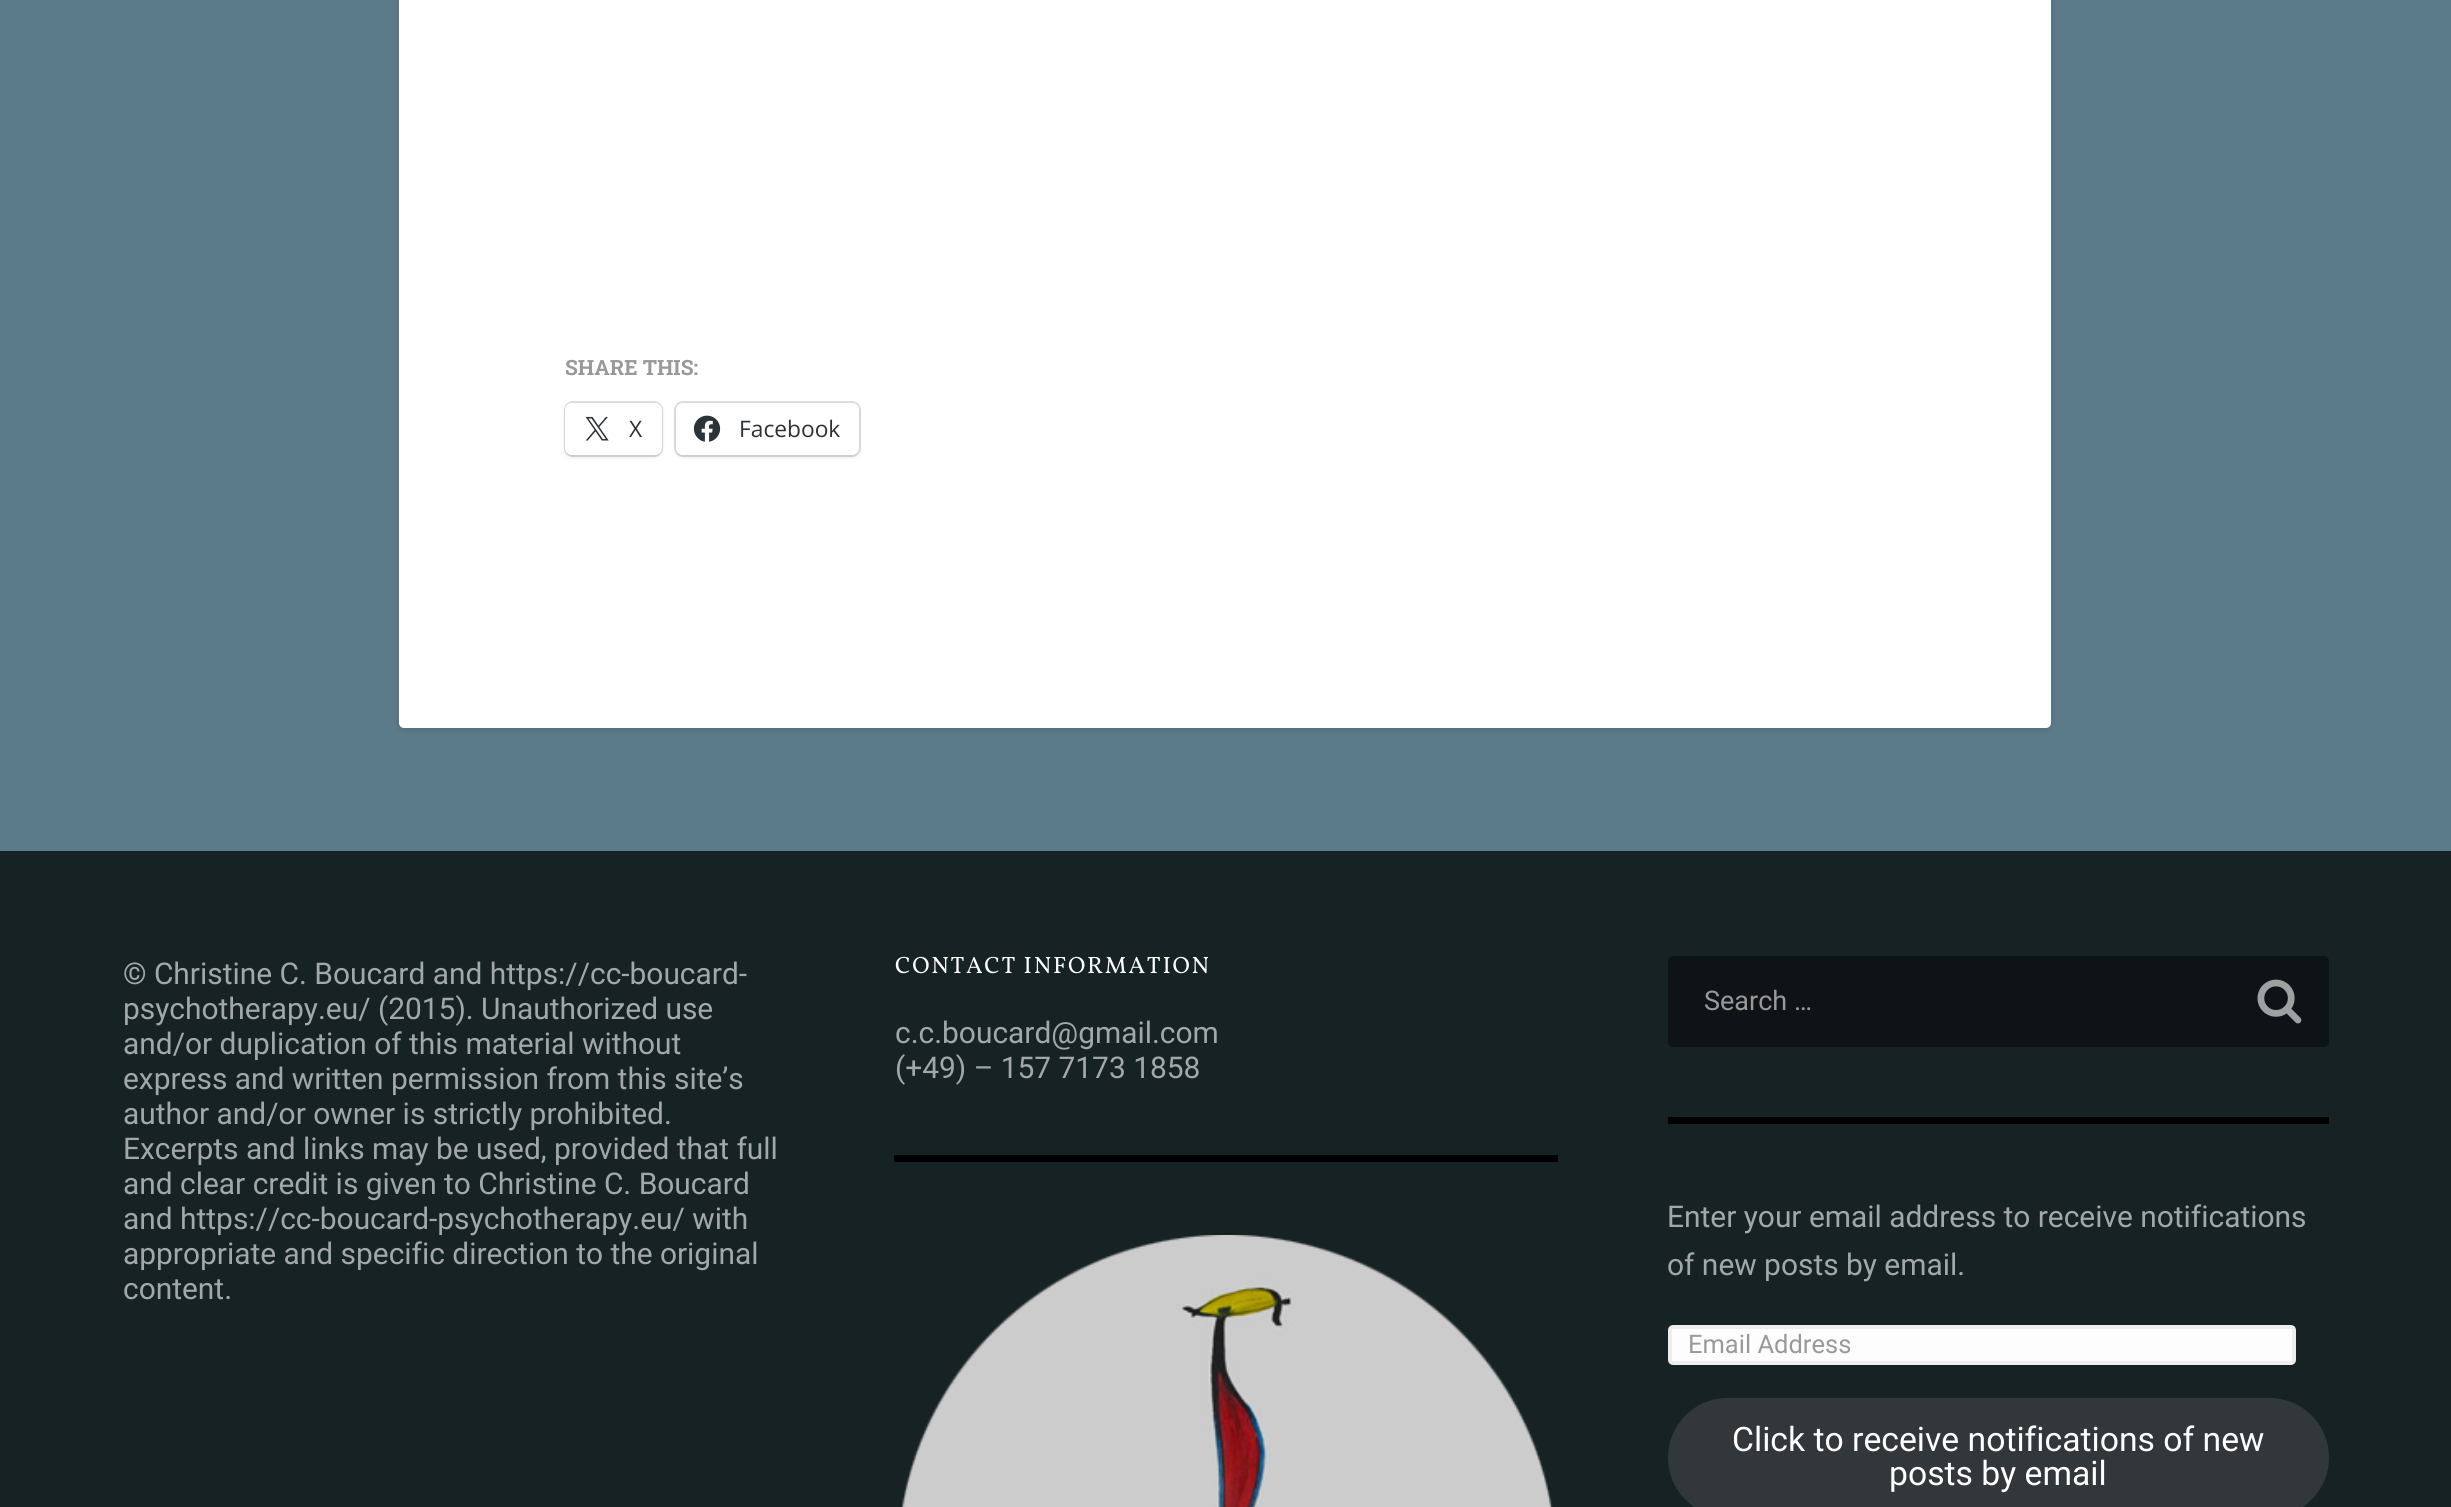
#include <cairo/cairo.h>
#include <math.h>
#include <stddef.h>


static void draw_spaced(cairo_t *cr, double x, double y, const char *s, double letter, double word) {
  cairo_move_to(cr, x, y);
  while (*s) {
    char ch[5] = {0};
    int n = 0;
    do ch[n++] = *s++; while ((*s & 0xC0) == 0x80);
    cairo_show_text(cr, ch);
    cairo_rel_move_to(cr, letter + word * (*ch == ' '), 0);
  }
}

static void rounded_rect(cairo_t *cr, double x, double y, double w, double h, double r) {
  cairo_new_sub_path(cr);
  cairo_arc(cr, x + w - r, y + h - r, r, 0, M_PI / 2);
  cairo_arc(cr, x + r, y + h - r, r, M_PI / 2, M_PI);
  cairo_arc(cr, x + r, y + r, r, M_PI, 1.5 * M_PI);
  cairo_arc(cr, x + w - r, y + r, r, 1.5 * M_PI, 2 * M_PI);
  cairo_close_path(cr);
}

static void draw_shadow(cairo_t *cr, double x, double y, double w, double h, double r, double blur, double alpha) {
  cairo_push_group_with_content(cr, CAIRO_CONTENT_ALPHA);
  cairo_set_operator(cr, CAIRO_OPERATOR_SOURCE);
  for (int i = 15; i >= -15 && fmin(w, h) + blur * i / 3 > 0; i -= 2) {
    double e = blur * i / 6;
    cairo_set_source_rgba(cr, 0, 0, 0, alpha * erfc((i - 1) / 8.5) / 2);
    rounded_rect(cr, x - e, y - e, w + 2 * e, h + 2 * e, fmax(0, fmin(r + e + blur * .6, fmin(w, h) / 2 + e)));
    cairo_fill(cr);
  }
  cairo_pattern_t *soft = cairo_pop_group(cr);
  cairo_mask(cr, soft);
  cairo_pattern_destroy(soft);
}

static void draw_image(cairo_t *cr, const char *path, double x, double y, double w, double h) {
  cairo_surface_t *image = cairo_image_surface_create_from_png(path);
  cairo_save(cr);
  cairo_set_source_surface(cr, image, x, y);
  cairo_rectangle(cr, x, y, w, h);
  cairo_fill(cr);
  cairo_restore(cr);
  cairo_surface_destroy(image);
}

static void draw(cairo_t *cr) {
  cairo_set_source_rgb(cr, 91 / 255.0, 123 / 255.0, 137 / 255.0);
  cairo_paint(cr);
  cairo_set_source_rgb(cr, 0, 0, 0);
  draw_shadow(cr, 399, -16, 1652, 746, 5, 3.5, 0.1);
  cairo_set_source_rgb(cr, 1, 1, 1);
  rounded_rect(cr, 399, -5, 1652, 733, 5);
  cairo_fill(cr);
  rounded_rect(cr, 565, 402, 97, 54, 8);
  cairo_set_source_rgb(cr, 224 / 255.0, 224 / 255.0, 224 / 255.0);
  cairo_stroke(cr);
  cairo_set_source_rgb(cr, 0, 0, 0);
  draw_shadow(cr, 565, 404, 97, 53, 7, 2, 0.12);
  cairo_set_source_rgb(cr, 1, 1, 1);
  rounded_rect(cr, 565, 403, 97, 52, 7);
  cairo_fill(cr);
  draw_image(cr, "images/1.png", 585, 416, 24, 25);
  rounded_rect(cr, 675, 402, 185, 54, 8);
  cairo_set_source_rgb(cr, 224 / 255.0, 224 / 255.0, 224 / 255.0);
  cairo_stroke(cr);
  cairo_set_source_rgb(cr, 0, 0, 0);
  draw_shadow(cr, 676, 404, 183, 53, 7, 2, 0.12);
  cairo_set_source_rgb(cr, 1, 1, 1);
  rounded_rect(cr, 676, 403, 183, 52, 7);
  cairo_fill(cr);
  draw_image(cr, "images/2.png", 693, 415, 28, 27);
  cairo_set_source_rgb(cr, 23 / 255.0, 34 / 255.0, 37 / 255.0);
  cairo_rectangle(cr, 0, 851, 2451, 656);
  cairo_fill(cr);
  cairo_set_source_rgb(cr, 0, 0, 0);
  cairo_rectangle(cr, 894, 1155, 664, 7);
  cairo_fill(cr);
  draw_image(cr, "images/3.png", 901, 1235, 652, 272);
  cairo_set_source_rgb(cr, 13 / 255.0, 19 / 255.0, 22 / 255.0);
  rounded_rect(cr, 1668, 956, 661, 91, 5);
  cairo_fill(cr);
  draw_image(cr, "images/4.png", 2257, 979, 45, 45);
  cairo_set_source_rgb(cr, 0, 0, 0);
  cairo_rectangle(cr, 1668, 1117, 661, 7);
  cairo_fill(cr);
  cairo_set_source_rgb(cr, 253 / 255.0, 253 / 255.0, 253 / 255.0);
  rounded_rect(cr, 1670, 1327, 624, 36, 3);
  cairo_fill_preserve(cr);
  cairo_set_source_rgb(cr, 238 / 255.0, 238 / 255.0, 238 / 255.0);
  cairo_set_line_width(cr, 4);
  cairo_stroke(cr);
  cairo_set_source_rgb(cr, 50 / 255.0, 55 / 255.0, 60 / 255.0);
  rounded_rect(cr, 1668, 1398, 661, 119, 59.5);
  cairo_fill(cr);
  cairo_select_font_face(cr, "Roboto Slab", CAIRO_FONT_SLANT_NORMAL, CAIRO_FONT_WEIGHT_BOLD);
  cairo_set_font_size(cr, 21);
  cairo_set_source_rgb(cr, 153 / 255.0, 153 / 255.0, 153 / 255.0);
  cairo_move_to(cr, 565, 375);
  cairo_show_text(cr, "SHARE THIS:");
  cairo_select_font_face(cr, "Open Sans", CAIRO_FONT_SLANT_NORMAL, CAIRO_FONT_WEIGHT_NORMAL);
  cairo_set_font_size(cr, 22.75);
  cairo_set_source_rgb(cr, 44 / 255.0, 51 / 255.0, 56 / 255.0);
  cairo_move_to(cr, 629, 437);
  cairo_show_text(cr, "X");
  cairo_move_to(cr, 739, 437);
  cairo_show_text(cr, "Facebook");
  cairo_select_font_face(cr, "Roboto", CAIRO_FONT_SLANT_NORMAL, CAIRO_FONT_WEIGHT_NORMAL);
  cairo_set_font_size(cr, 29.9);
  cairo_set_source_rgb(cr, 162 / 255.0, 167 / 255.0, 168 / 255.0);
  cairo_move_to(cr, 123, 984);
  cairo_show_text(cr, "© Christine C. Boucard and https://cc-boucard-");
  cairo_move_to(cr, 123, 1019);
  cairo_show_text(cr, "psychotherapy.eu/ (2015). Unauthorized use");
  cairo_move_to(cr, 123, 1054);
  cairo_show_text(cr, "and/or duplication of this material without");
  cairo_move_to(cr, 123, 1089);
  cairo_show_text(cr, "express and written permission from this site’s");
  cairo_move_to(cr, 123, 1124);
  cairo_show_text(cr, "author and/or owner is strictly prohibited.");
  cairo_move_to(cr, 123, 1159);
  cairo_show_text(cr, "Excerpts and links may be used, provided that full");
  cairo_move_to(cr, 123, 1194);
  cairo_show_text(cr, "and clear credit is given to Christine C. Boucard");
  cairo_move_to(cr, 123, 1229);
  cairo_show_text(cr, "and https://cc-boucard-psychotherapy.eu/ with");
  cairo_move_to(cr, 123, 1264);
  cairo_show_text(cr, "appropriate and specific direction to the original");
  cairo_move_to(cr, 123, 1299);
  cairo_show_text(cr, "content.");
  cairo_select_font_face(cr, "Vollkorn", CAIRO_FONT_SLANT_NORMAL, CAIRO_FONT_WEIGHT_NORMAL);
  cairo_set_font_size(cr, 23.6);
  cairo_set_source_rgb(cr, 1, 1, 1);
  draw_spaced(cr, 895, 973, "CONTACT INFORMATION", 1.75, 0);
  cairo_select_font_face(cr, "Roboto", CAIRO_FONT_SLANT_NORMAL, CAIRO_FONT_WEIGHT_NORMAL);
  cairo_set_font_size(cr, 29.9);
  cairo_set_source_rgb(cr, 162 / 255.0, 167 / 255.0, 168 / 255.0);
  cairo_move_to(cr, 895, 1043);
  cairo_show_text(cr, "c.c.boucard@gmail.com");
  cairo_move_to(cr, 895, 1078);
  cairo_show_text(cr, "(+49) – 157 7173 1858");
  cairo_set_font_size(cr, 27);
  cairo_set_source_rgb(cr, 153 / 255.0, 153 / 255.0, 153 / 255.0);
  cairo_move_to(cr, 1704, 1010);
  cairo_show_text(cr, "Search …");
  cairo_set_font_size(cr, 29.9);
  cairo_set_source_rgb(cr, 162 / 255.0, 167 / 255.0, 168 / 255.0);
  cairo_move_to(cr, 1667, 1227);
  cairo_show_text(cr, "Enter your email address to receive notifications");
  cairo_move_to(cr, 1667, 1275);
  cairo_show_text(cr, "of new posts by email.");
  cairo_set_font_size(cr, 25.5);
  cairo_set_source_rgb(cr, 153 / 255.0, 153 / 255.0, 153 / 255.0);
  cairo_move_to(cr, 1688, 1353);
  cairo_show_text(cr, "Email Address");
  cairo_set_font_size(cr, 33.7);
  cairo_set_source_rgb(cr, 1, 1, 1);
  cairo_move_to(cr, 1732, 1451);
  cairo_show_text(cr, "Click to receive notifications of new");
  cairo_move_to(cr, 1889, 1485);
  cairo_show_text(cr, "posts by email");
}

int main(void) {
  cairo_surface_t *surface = cairo_image_surface_create(CAIRO_FORMAT_RGB24, 2451, 1507);
  cairo_t *cr = cairo_create(surface);
  cairo_font_options_t *options = cairo_font_options_create();
  cairo_font_options_set_hint_metrics(options, CAIRO_HINT_METRICS_OFF);
  cairo_font_options_set_hint_style(options, CAIRO_HINT_STYLE_NONE);
  cairo_set_font_options(cr, options);
  cairo_set_miter_limit(cr, 4);
  draw(cr);
  cairo_surface_write_to_png(surface, "out.png");
  cairo_font_options_destroy(options);
  cairo_destroy(cr);
  cairo_surface_destroy(surface);
  return 0;
}
